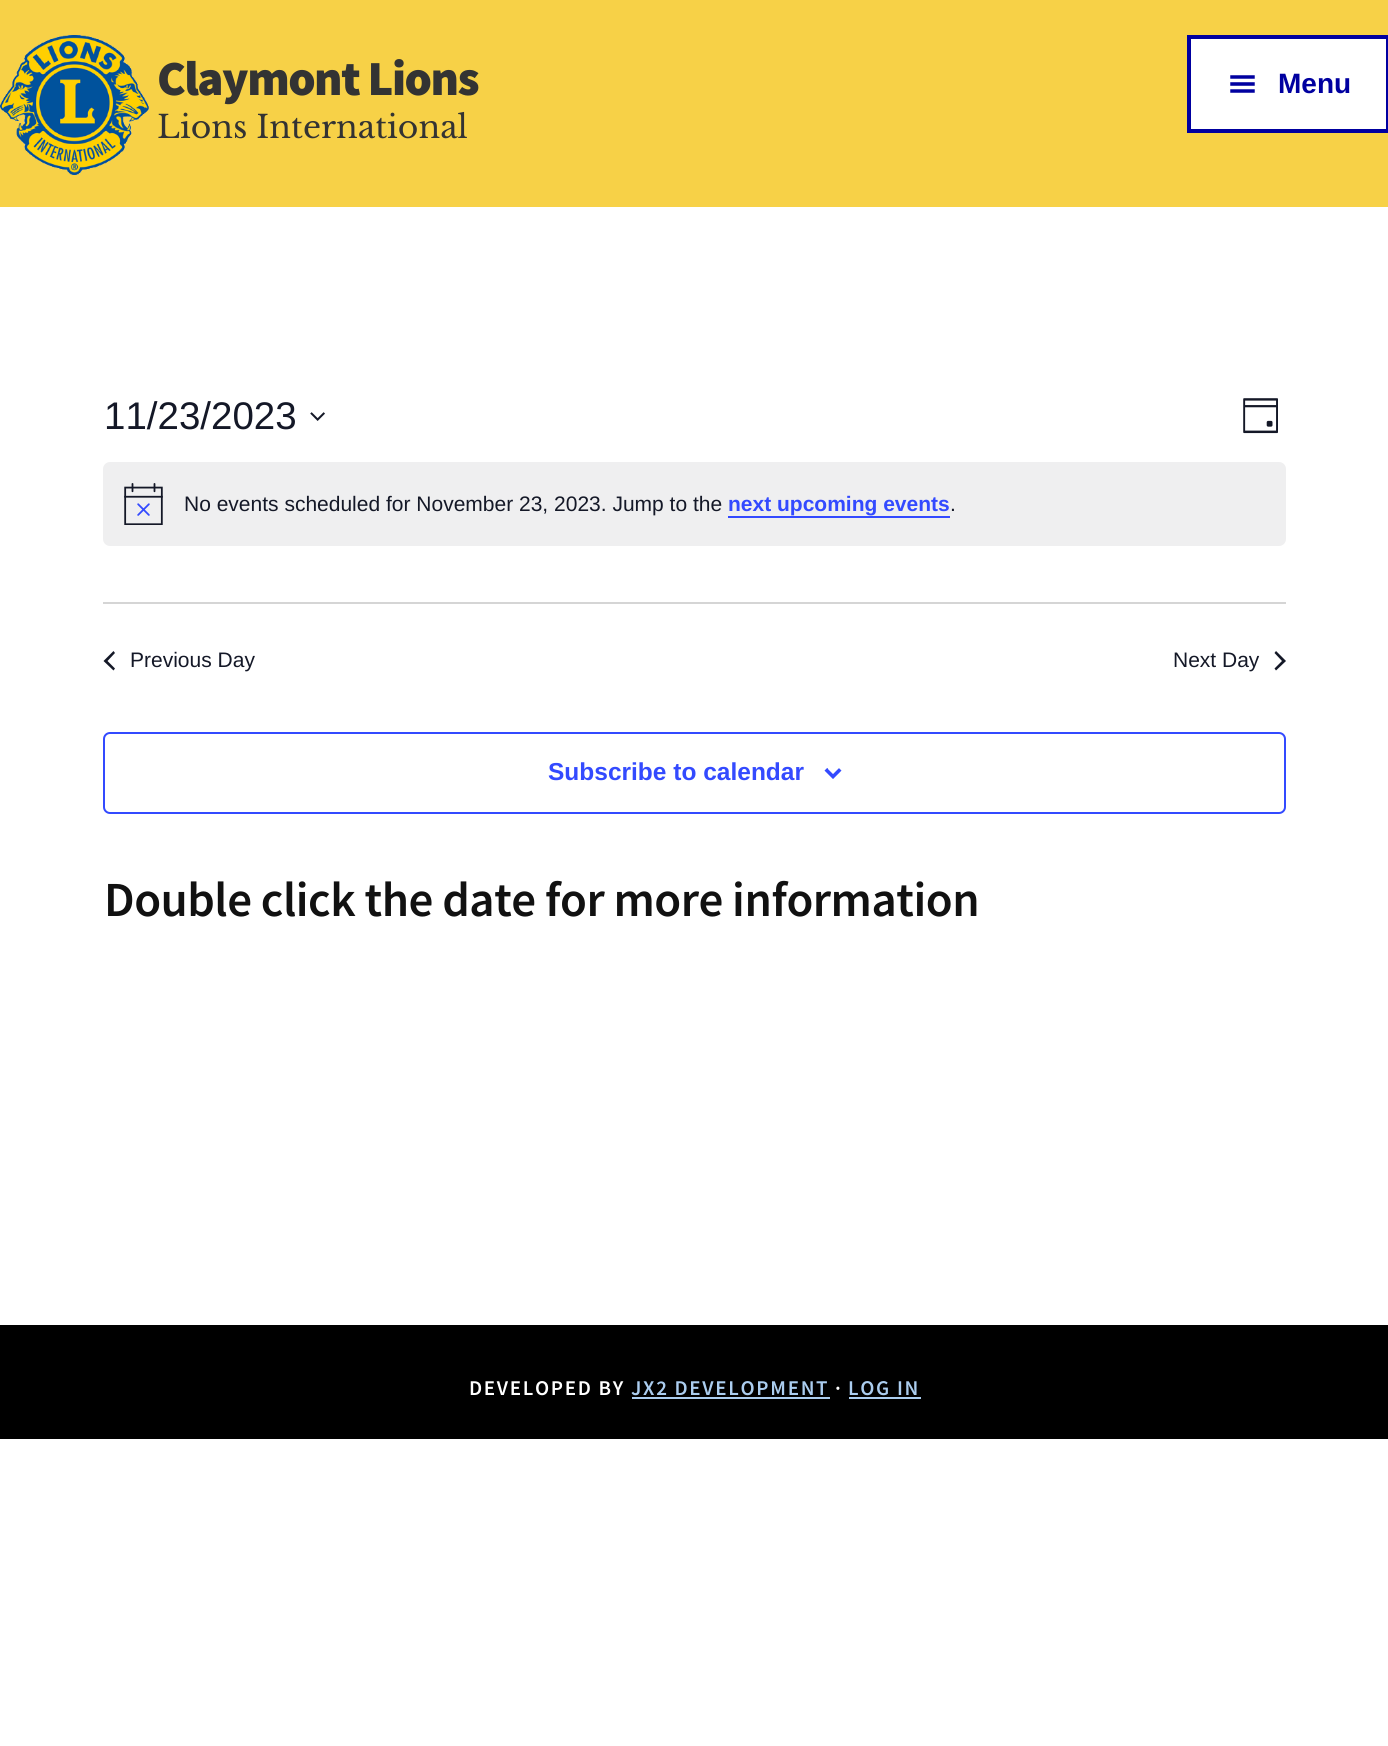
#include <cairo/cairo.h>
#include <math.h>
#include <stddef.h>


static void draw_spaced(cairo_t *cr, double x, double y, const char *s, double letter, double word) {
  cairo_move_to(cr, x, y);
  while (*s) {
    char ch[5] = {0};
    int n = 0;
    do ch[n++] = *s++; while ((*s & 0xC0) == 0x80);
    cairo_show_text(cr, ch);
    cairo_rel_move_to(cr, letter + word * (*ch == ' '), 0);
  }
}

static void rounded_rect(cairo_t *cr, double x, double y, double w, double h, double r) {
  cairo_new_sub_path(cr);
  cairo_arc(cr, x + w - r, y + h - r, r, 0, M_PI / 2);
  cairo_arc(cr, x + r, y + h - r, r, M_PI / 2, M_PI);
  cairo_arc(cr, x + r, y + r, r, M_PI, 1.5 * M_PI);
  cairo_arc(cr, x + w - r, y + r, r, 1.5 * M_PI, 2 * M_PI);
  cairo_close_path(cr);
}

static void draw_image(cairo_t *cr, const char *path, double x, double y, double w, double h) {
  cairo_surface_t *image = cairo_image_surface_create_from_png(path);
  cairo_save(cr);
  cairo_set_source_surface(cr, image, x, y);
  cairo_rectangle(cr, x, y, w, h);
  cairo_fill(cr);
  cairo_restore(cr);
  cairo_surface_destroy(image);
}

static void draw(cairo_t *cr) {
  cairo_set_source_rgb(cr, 1, 1, 1);
  cairo_paint(cr);
  cairo_set_source_rgb(cr, 247 / 255.0, 209 / 255.0, 71 / 255.0);
  cairo_rectangle(cr, 0, 0, 1388, 207);
  cairo_fill(cr);
  draw_image(cr, "images/1.png", 0, 35, 149, 140);
  cairo_set_source_rgb(cr, 1, 1, 1);
  cairo_rectangle(cr, 1189, 37, 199, 94);
  cairo_fill_preserve(cr);
  cairo_set_source_rgb(cr, 0, 0, 160 / 255.0);
  cairo_set_line_width(cr, 4);
  cairo_stroke(cr);
  draw_image(cr, "images/2.png", 1230, 75, 25, 18);
  draw_image(cr, "images/3.png", 310, 412, 15, 9);
  draw_image(cr, "images/4.png", 1243, 398, 35, 36);
  cairo_set_source_rgb(cr, 239 / 255.0, 239 / 255.0, 240 / 255.0);
  rounded_rect(cr, 103, 462, 1183, 84, 7);
  cairo_fill(cr);
  draw_image(cr, "images/5.png", 124, 483, 39, 42);
  cairo_set_source_rgb(cr, 51 / 255.0, 74 / 255.0, 1);
  cairo_rectangle(cr, 728, 516, 222, 2);
  cairo_fill(cr);
  cairo_set_source_rgb(cr, 213 / 255.0, 213 / 255.0, 213 / 255.0);
  cairo_rectangle(cr, 103, 602, 1183, 2);
  cairo_fill(cr);
  cairo_set_source_rgb(cr, 20 / 255.0, 24 / 255.0, 39 / 255.0);
  cairo_new_path(cr);
  cairo_move_to(cr, 115, 668.5);
  cairo_line_to(cr, 113.5, 670.5);
  cairo_line_to(cr, 103.5, 661);
  cairo_line_to(cr, 113.5, 651);
  cairo_line_to(cr, 115, 653);
  cairo_line_to(cr, 107.5, 661);
  cairo_close_path(cr);
  cairo_fill(cr);
  cairo_new_path(cr);
  cairo_move_to(cr, 1274.5, 653);
  cairo_line_to(cr, 1276, 651);
  cairo_line_to(cr, 1286, 661);
  cairo_line_to(cr, 1276, 670.5);
  cairo_line_to(cr, 1274.5, 668.5);
  cairo_line_to(cr, 1282, 661);
  cairo_close_path(cr);
  cairo_fill(cr);
  rounded_rect(cr, 104, 733, 1181, 80, 6);
  cairo_set_source_rgb(cr, 51 / 255.0, 74 / 255.0, 1);
  cairo_set_line_width(cr, 2);
  cairo_stroke(cr);
  draw_image(cr, "images/6.png", 824, 768, 18, 11);
  cairo_set_source_rgb(cr, 0, 0, 0);
  cairo_rectangle(cr, 0, 1325, 1388, 114);
  cairo_fill(cr);
  cairo_set_source_rgb(cr, 171 / 255.0, 205 / 255.0, 239 / 255.0);
  cairo_rectangle(cr, 632, 1397, 198, 2);
  cairo_fill(cr);
  cairo_rectangle(cr, 849, 1397, 72, 2);
  cairo_fill(cr);
  cairo_select_font_face(cr, "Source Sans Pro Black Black", CAIRO_FONT_SLANT_NORMAL, CAIRO_FONT_WEIGHT_NORMAL);
  cairo_set_font_size(cr, 49);
  cairo_set_source_rgb(cr, 51 / 255.0, 51 / 255.0, 51 / 255.0);
  draw_spaced(cr, 157, 95, "Claymont Lions", -1.5, 0);
  cairo_select_font_face(cr, "Libre Baskerville", CAIRO_FONT_SLANT_NORMAL, CAIRO_FONT_WEIGHT_NORMAL);
  cairo_set_font_size(cr, 31.5);
  cairo_move_to(cr, 157, 138);
  cairo_show_text(cr, "Lions International");
  cairo_select_font_face(cr, "Liberation Sans", CAIRO_FONT_SLANT_NORMAL, CAIRO_FONT_WEIGHT_BOLD);
  cairo_set_font_size(cr, 28);
  cairo_set_source_rgb(cr, 0, 0, 160 / 255.0);
  cairo_move_to(cr, 1278, 93);
  cairo_show_text(cr, "Menu");
  cairo_select_font_face(cr, "Liberation Sans", CAIRO_FONT_SLANT_NORMAL, CAIRO_FONT_WEIGHT_NORMAL);
  cairo_set_font_size(cr, 38.5);
  cairo_set_source_rgb(cr, 20 / 255.0, 24 / 255.0, 39 / 255.0);
  cairo_move_to(cr, 104, 429);
  cairo_show_text(cr, "11/23/2023");
  cairo_set_font_size(cr, 21);
  cairo_move_to(cr, 184, 511);
  cairo_show_text(cr, "No events scheduled for November 23, 2023. Jump to the");
  cairo_select_font_face(cr, "Liberation Sans", CAIRO_FONT_SLANT_NORMAL, CAIRO_FONT_WEIGHT_BOLD);
  cairo_set_source_rgb(cr, 51 / 255.0, 74 / 255.0, 1);
  cairo_move_to(cr, 728, 511);
  cairo_show_text(cr, "next upcoming events");
  cairo_select_font_face(cr, "Liberation Sans", CAIRO_FONT_SLANT_NORMAL, CAIRO_FONT_WEIGHT_NORMAL);
  cairo_set_source_rgb(cr, 20 / 255.0, 24 / 255.0, 39 / 255.0);
  cairo_move_to(cr, 950, 511);
  cairo_show_text(cr, ".");
  cairo_move_to(cr, 130, 667);
  cairo_show_text(cr, "Previous Day");
  cairo_move_to(cr, 1173, 667);
  cairo_show_text(cr, "Next Day");
  cairo_select_font_face(cr, "Liberation Sans", CAIRO_FONT_SLANT_NORMAL, CAIRO_FONT_WEIGHT_BOLD);
  cairo_set_font_size(cr, 24.5);
  cairo_set_source_rgb(cr, 51 / 255.0, 74 / 255.0, 1);
  cairo_move_to(cr, 548, 780);
  cairo_show_text(cr, "Subscribe to calendar");
  cairo_select_font_face(cr, "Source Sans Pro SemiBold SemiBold", CAIRO_FONT_SLANT_NORMAL, CAIRO_FONT_WEIGHT_NORMAL);
  cairo_set_font_size(cr, 49);
  cairo_set_source_rgb(cr, 17 / 255.0, 17 / 255.0, 17 / 255.0);
  draw_spaced(cr, 104, 916, "Double click the date for more information", -0.5, 0);
  cairo_set_font_size(cr, 21);
  cairo_set_source_rgb(cr, 1, 1, 1);
  draw_spaced(cr, 469, 1395, "DEVELOPED BY", 1.7, 0);
  cairo_set_source_rgb(cr, 171 / 255.0, 205 / 255.0, 239 / 255.0);
  draw_spaced(cr, 631, 1395, "JX2 DEVELOPMENT", 1.7, 0);
  cairo_set_source_rgb(cr, 1, 1, 1);
  draw_spaced(cr, 835, 1395, "·", 1.7, 0);
  cairo_set_source_rgb(cr, 171 / 255.0, 205 / 255.0, 239 / 255.0);
  draw_spaced(cr, 848, 1395, "LOG IN", 1.7, 0);
}

int main(void) {
  cairo_surface_t *surface = cairo_image_surface_create(CAIRO_FORMAT_RGB24, 1388, 1746);
  cairo_t *cr = cairo_create(surface);
  cairo_font_options_t *options = cairo_font_options_create();
  cairo_font_options_set_hint_metrics(options, CAIRO_HINT_METRICS_OFF);
  cairo_font_options_set_hint_style(options, CAIRO_HINT_STYLE_NONE);
  cairo_set_font_options(cr, options);
  cairo_set_miter_limit(cr, 4);
  draw(cr);
  cairo_surface_write_to_png(surface, "out.png");
  cairo_font_options_destroy(options);
  cairo_destroy(cr);
  cairo_surface_destroy(surface);
  return 0;
}
